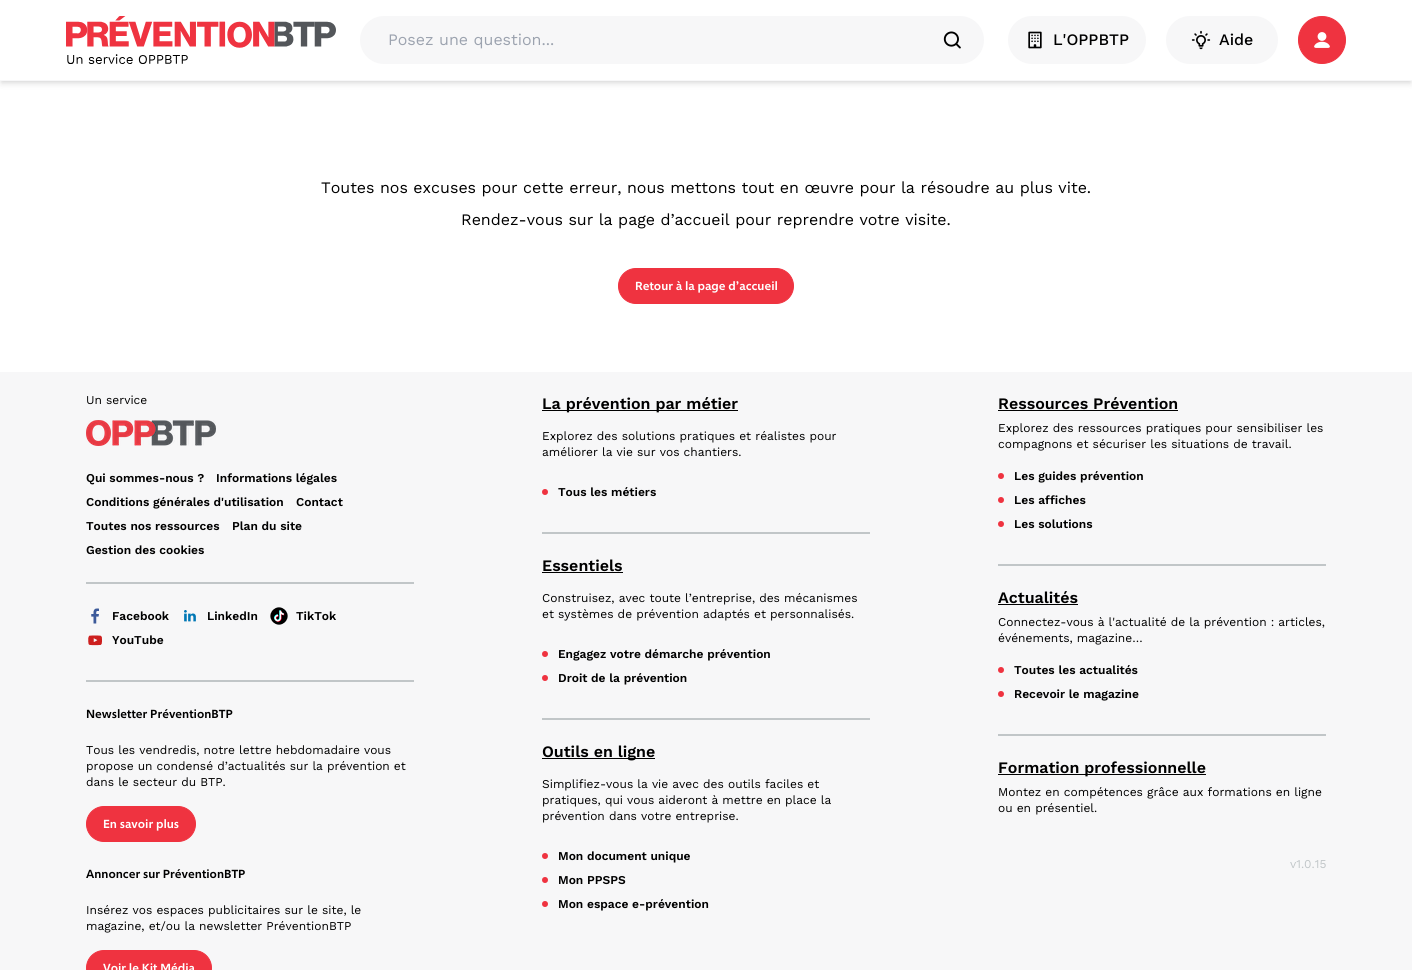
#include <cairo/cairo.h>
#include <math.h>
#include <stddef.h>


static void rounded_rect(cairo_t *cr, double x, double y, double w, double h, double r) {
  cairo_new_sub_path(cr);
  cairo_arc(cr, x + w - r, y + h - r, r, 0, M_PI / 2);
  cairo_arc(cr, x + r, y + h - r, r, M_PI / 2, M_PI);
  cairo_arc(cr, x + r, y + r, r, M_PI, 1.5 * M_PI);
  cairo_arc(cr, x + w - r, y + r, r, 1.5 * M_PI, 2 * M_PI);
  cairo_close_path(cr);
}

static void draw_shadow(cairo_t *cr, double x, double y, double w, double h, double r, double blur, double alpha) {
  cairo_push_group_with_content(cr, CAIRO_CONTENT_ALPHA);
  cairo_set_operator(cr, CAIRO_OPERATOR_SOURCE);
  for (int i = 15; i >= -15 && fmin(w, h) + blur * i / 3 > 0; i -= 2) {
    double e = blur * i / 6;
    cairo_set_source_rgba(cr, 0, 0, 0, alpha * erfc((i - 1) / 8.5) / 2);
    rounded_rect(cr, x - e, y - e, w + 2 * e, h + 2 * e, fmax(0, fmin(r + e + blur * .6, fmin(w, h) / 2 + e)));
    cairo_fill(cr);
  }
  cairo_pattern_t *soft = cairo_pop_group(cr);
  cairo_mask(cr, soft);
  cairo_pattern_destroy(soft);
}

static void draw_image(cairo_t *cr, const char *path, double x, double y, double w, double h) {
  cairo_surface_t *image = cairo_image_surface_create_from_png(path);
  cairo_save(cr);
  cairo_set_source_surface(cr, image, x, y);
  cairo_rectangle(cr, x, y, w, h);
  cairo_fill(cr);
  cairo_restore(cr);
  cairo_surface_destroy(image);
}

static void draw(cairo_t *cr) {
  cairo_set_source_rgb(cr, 1, 1, 1);
  cairo_paint(cr);
  cairo_set_source_rgb(cr, 0, 0, 0);
  draw_shadow(cr, 2, 4, 1408, 77, 0, 2, 0.1);
  draw_shadow(cr, 1, 5, 1410, 79, 0, 3, 0.1);
  cairo_set_source_rgb(cr, 1, 1, 1);
  cairo_rectangle(cr, 0, 0, 1412, 80);
  cairo_fill(cr);
  cairo_set_source_rgb(cr, 247 / 255.0, 247 / 255.0, 248 / 255.0);
  cairo_rectangle(cr, 0, 80, 1412, 1);
  cairo_fill(cr);
  draw_image(cr, "images/1.png", 66, 16, 270, 48);
  rounded_rect(cr, 360, 16, 624, 48, 24);
  cairo_fill(cr);
  draw_image(cr, "images/2.png", 943, 31, 18, 18);
  rounded_rect(cr, 1008, 16, 138, 48, 24);
  cairo_fill(cr);
  draw_image(cr, "images/3.png", 1028, 31, 14, 18);
  rounded_rect(cr, 1166, 16, 112, 48, 24);
  cairo_fill(cr);
  draw_image(cr, "images/4.png", 1191, 30, 20, 20);
  cairo_set_source_rgb(cr, 239 / 255.0, 51 / 255.0, 64 / 255.0);
  cairo_arc(cr, 1322, 40, 23.5, 0, 2 * M_PI);
  cairo_fill_preserve(cr);
  cairo_set_line_width(cr, 1);
  cairo_stroke(cr);
  draw_image(cr, "images/5.png", 1314, 32, 16, 16);
  rounded_rect(cr, 618.5, 268.5, 175, 35, 17.5);
  cairo_fill_preserve(cr);
  cairo_stroke(cr);
  cairo_set_source_rgb(cr, 247 / 255.0, 247 / 255.0, 248 / 255.0);
  cairo_rectangle(cr, 0, 372, 1412, 598);
  cairo_fill(cr);
  draw_image(cr, "images/6.png", 86, 420, 130, 26);
  cairo_set_source_rgb(cr, 193 / 255.0, 198 / 255.0, 200 / 255.0);
  cairo_rectangle(cr, 86, 582, 328, 2);
  cairo_fill(cr);
  draw_image(cr, "images/7.png", 91, 608, 8, 16);
  draw_image(cr, "images/8.png", 184, 610, 12, 12);
  draw_image(cr, "images/9.png", 270, 607, 18, 18);
  draw_image(cr, "images/10.png", 88, 635, 14, 11);
  cairo_rectangle(cr, 86, 680, 328, 2);
  cairo_fill(cr);
  cairo_set_source_rgb(cr, 239 / 255.0, 51 / 255.0, 64 / 255.0);
  rounded_rect(cr, 86.5, 806.5, 109, 35, 17.5);
  cairo_fill_preserve(cr);
  cairo_stroke(cr);
  rounded_rect(cr, 86.5, 950.5, 125, 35, 17.5);
  cairo_fill_preserve(cr);
  cairo_stroke(cr);
  cairo_set_source_rgb(cr, 0, 0, 0);
  cairo_rectangle(cr, 542, 410, 196, 1);
  cairo_fill(cr);
  cairo_set_source_rgb(cr, 239 / 255.0, 51 / 255.0, 64 / 255.0);
  cairo_arc(cr, 545, 492, 3, 0, 2 * M_PI);
  cairo_fill(cr);
  cairo_set_source_rgb(cr, 193 / 255.0, 198 / 255.0, 200 / 255.0);
  cairo_rectangle(cr, 542, 532, 328, 2);
  cairo_fill(cr);
  cairo_set_source_rgb(cr, 0, 0, 0);
  cairo_rectangle(cr, 542, 572, 81, 1);
  cairo_fill(cr);
  cairo_set_source_rgb(cr, 239 / 255.0, 51 / 255.0, 64 / 255.0);
  cairo_arc(cr, 545, 654, 3, 0, 2 * M_PI);
  cairo_fill(cr);
  cairo_arc(cr, 545, 678, 3, 0, 2 * M_PI);
  cairo_fill(cr);
  cairo_set_source_rgb(cr, 193 / 255.0, 198 / 255.0, 200 / 255.0);
  cairo_rectangle(cr, 542, 718, 328, 2);
  cairo_fill(cr);
  cairo_set_source_rgb(cr, 0, 0, 0);
  cairo_rectangle(cr, 542, 758, 113, 1);
  cairo_fill(cr);
  cairo_set_source_rgb(cr, 239 / 255.0, 51 / 255.0, 64 / 255.0);
  cairo_arc(cr, 545, 856, 3, 0, 2 * M_PI);
  cairo_fill(cr);
  cairo_arc(cr, 545, 880, 3, 0, 2 * M_PI);
  cairo_fill(cr);
  cairo_arc(cr, 545, 904, 3, 0, 2 * M_PI);
  cairo_fill(cr);
  cairo_set_source_rgb(cr, 0, 0, 0);
  cairo_rectangle(cr, 998, 410, 180, 1);
  cairo_fill(cr);
  cairo_set_source_rgb(cr, 239 / 255.0, 51 / 255.0, 64 / 255.0);
  cairo_arc(cr, 1001, 476, 3, 0, 2 * M_PI);
  cairo_fill(cr);
  cairo_arc(cr, 1001, 500, 3, 0, 2 * M_PI);
  cairo_fill(cr);
  cairo_arc(cr, 1001, 524, 3, 0, 2 * M_PI);
  cairo_fill(cr);
  cairo_set_source_rgb(cr, 193 / 255.0, 198 / 255.0, 200 / 255.0);
  cairo_rectangle(cr, 998, 564, 328, 2);
  cairo_fill(cr);
  cairo_set_source_rgb(cr, 0, 0, 0);
  cairo_rectangle(cr, 998, 604, 80, 1);
  cairo_fill(cr);
  cairo_set_source_rgb(cr, 239 / 255.0, 51 / 255.0, 64 / 255.0);
  cairo_arc(cr, 1001, 670, 3, 0, 2 * M_PI);
  cairo_fill(cr);
  cairo_arc(cr, 1001, 694, 3, 0, 2 * M_PI);
  cairo_fill(cr);
  cairo_set_source_rgb(cr, 193 / 255.0, 198 / 255.0, 200 / 255.0);
  cairo_rectangle(cr, 998, 734, 328, 2);
  cairo_fill(cr);
  cairo_set_source_rgb(cr, 0, 0, 0);
  cairo_rectangle(cr, 998, 774, 208, 1);
  cairo_fill(cr);
  cairo_select_font_face(cr, "Work Sans", CAIRO_FONT_SLANT_NORMAL, CAIRO_FONT_WEIGHT_NORMAL);
  cairo_set_font_size(cr, 16);
  cairo_set_source_rgb(cr, 156 / 255.0, 163 / 255.0, 175 / 255.0);
  cairo_move_to(cr, 388, 45);
  cairo_show_text(cr, "Posez une question...");
  cairo_select_font_face(cr, "Work Sans Medium", CAIRO_FONT_SLANT_NORMAL, CAIRO_FONT_WEIGHT_NORMAL);
  cairo_set_source_rgb(cr, 0, 0, 0);
  cairo_move_to(cr, 1053, 45);
  cairo_show_text(cr, "L'OPPBTP");
  cairo_move_to(cr, 1219, 45);
  cairo_show_text(cr, "Aide");
  cairo_select_font_face(cr, "Work Sans", CAIRO_FONT_SLANT_NORMAL, CAIRO_FONT_WEIGHT_NORMAL);
  cairo_move_to(cr, 321, 193);
  cairo_show_text(cr, "Toutes nos excuses pour cette erreur, nous mettons tout en œuvre pour la résoudre au plus vite.");
  cairo_move_to(cr, 461, 225);
  cairo_show_text(cr, "Rendez-vous sur la page d’accueil pour reprendre votre visite.");
  cairo_select_font_face(cr, "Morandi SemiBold", CAIRO_FONT_SLANT_NORMAL, CAIRO_FONT_WEIGHT_NORMAL);
  cairo_set_font_size(cr, 12);
  cairo_set_source_rgb(cr, 1, 1, 1);
  cairo_move_to(cr, 635, 290);
  cairo_show_text(cr, "Retour à la page d’accueil");
  cairo_select_font_face(cr, "Work Sans", CAIRO_FONT_SLANT_NORMAL, CAIRO_FONT_WEIGHT_NORMAL);
  cairo_set_source_rgb(cr, 0, 0, 0);
  cairo_move_to(cr, 86, 404);
  cairo_show_text(cr, "Un service");
  cairo_select_font_face(cr, "Work Sans SemiBold", CAIRO_FONT_SLANT_NORMAL, CAIRO_FONT_WEIGHT_NORMAL);
  cairo_move_to(cr, 86, 482);
  cairo_show_text(cr, "Qui sommes-nous ?");
  cairo_move_to(cr, 216, 482);
  cairo_show_text(cr, "Informations légales");
  cairo_move_to(cr, 86, 506);
  cairo_show_text(cr, "Conditions générales d'utilisation");
  cairo_move_to(cr, 296, 506);
  cairo_show_text(cr, "Contact");
  cairo_move_to(cr, 86, 530);
  cairo_show_text(cr, "Toutes nos ressources");
  cairo_move_to(cr, 232, 530);
  cairo_show_text(cr, "Plan du site");
  cairo_move_to(cr, 86, 554);
  cairo_show_text(cr, "Gestion des cookies");
  cairo_move_to(cr, 112, 620);
  cairo_show_text(cr, "Facebook");
  cairo_move_to(cr, 207, 620);
  cairo_show_text(cr, "LinkedIn");
  cairo_move_to(cr, 296, 620);
  cairo_show_text(cr, "TikTok");
  cairo_move_to(cr, 112, 644);
  cairo_show_text(cr, "YouTube");
  cairo_select_font_face(cr, "Morandi SemiBold", CAIRO_FONT_SLANT_NORMAL, CAIRO_FONT_WEIGHT_NORMAL);
  cairo_move_to(cr, 86, 718);
  cairo_show_text(cr, "Newsletter PréventionBTP");
  cairo_select_font_face(cr, "Work Sans", CAIRO_FONT_SLANT_NORMAL, CAIRO_FONT_WEIGHT_NORMAL);
  cairo_move_to(cr, 86, 754);
  cairo_show_text(cr, "Tous les vendredis, notre lettre hebdomadaire vous");
  cairo_move_to(cr, 86, 770);
  cairo_show_text(cr, "propose un condensé d’actualités sur la prévention et");
  cairo_move_to(cr, 86, 786);
  cairo_show_text(cr, "dans le secteur du BTP.");
  cairo_select_font_face(cr, "Morandi SemiBold", CAIRO_FONT_SLANT_NORMAL, CAIRO_FONT_WEIGHT_NORMAL);
  cairo_set_source_rgb(cr, 1, 1, 1);
  cairo_move_to(cr, 103, 828);
  cairo_show_text(cr, "En savoir plus");
  cairo_set_source_rgb(cr, 0, 0, 0);
  cairo_move_to(cr, 86, 878);
  cairo_show_text(cr, "Annoncer sur PréventionBTP");
  cairo_select_font_face(cr, "Work Sans", CAIRO_FONT_SLANT_NORMAL, CAIRO_FONT_WEIGHT_NORMAL);
  cairo_move_to(cr, 86, 914);
  cairo_show_text(cr, "Insérez vos espaces publicitaires sur le site, le");
  cairo_move_to(cr, 86, 930);
  cairo_show_text(cr, "magazine, et/ou la newsletter PréventionBTP");
  cairo_select_font_face(cr, "Morandi SemiBold", CAIRO_FONT_SLANT_NORMAL, CAIRO_FONT_WEIGHT_NORMAL);
  cairo_set_source_rgb(cr, 1, 1, 1);
  cairo_move_to(cr, 103, 972);
  cairo_show_text(cr, "Voir le Kit Média");
  cairo_select_font_face(cr, "Work Sans SemiBold", CAIRO_FONT_SLANT_NORMAL, CAIRO_FONT_WEIGHT_NORMAL);
  cairo_set_font_size(cr, 16);
  cairo_set_source_rgb(cr, 0, 0, 0);
  cairo_move_to(cr, 542, 409);
  cairo_show_text(cr, "La prévention par métier");
  cairo_select_font_face(cr, "Work Sans", CAIRO_FONT_SLANT_NORMAL, CAIRO_FONT_WEIGHT_NORMAL);
  cairo_set_font_size(cr, 12);
  cairo_move_to(cr, 542, 440);
  cairo_show_text(cr, "Explorez des solutions pratiques et réalistes pour");
  cairo_move_to(cr, 542, 456);
  cairo_show_text(cr, "améliorer la vie sur vos chantiers.");
  cairo_select_font_face(cr, "Work Sans SemiBold", CAIRO_FONT_SLANT_NORMAL, CAIRO_FONT_WEIGHT_NORMAL);
  cairo_move_to(cr, 558, 496);
  cairo_show_text(cr, "Tous les métiers");
  cairo_set_font_size(cr, 16);
  cairo_move_to(cr, 542, 571);
  cairo_show_text(cr, "Essentiels");
  cairo_select_font_face(cr, "Work Sans", CAIRO_FONT_SLANT_NORMAL, CAIRO_FONT_WEIGHT_NORMAL);
  cairo_set_font_size(cr, 12);
  cairo_move_to(cr, 542, 602);
  cairo_show_text(cr, "Construisez, avec toute l’entreprise, des mécanismes");
  cairo_move_to(cr, 542, 618);
  cairo_show_text(cr, "et systèmes de prévention adaptés et personnalisés.");
  cairo_select_font_face(cr, "Work Sans SemiBold", CAIRO_FONT_SLANT_NORMAL, CAIRO_FONT_WEIGHT_NORMAL);
  cairo_move_to(cr, 558, 658);
  cairo_show_text(cr, "Engagez votre démarche prévention");
  cairo_move_to(cr, 558, 682);
  cairo_show_text(cr, "Droit de la prévention");
  cairo_set_font_size(cr, 16);
  cairo_move_to(cr, 542, 757);
  cairo_show_text(cr, "Outils en ligne");
  cairo_select_font_face(cr, "Work Sans", CAIRO_FONT_SLANT_NORMAL, CAIRO_FONT_WEIGHT_NORMAL);
  cairo_set_font_size(cr, 12);
  cairo_move_to(cr, 542, 788);
  cairo_show_text(cr, "Simplifiez-vous la vie avec des outils faciles et");
  cairo_move_to(cr, 542, 804);
  cairo_show_text(cr, "pratiques, qui vous aideront à mettre en place la");
  cairo_move_to(cr, 542, 820);
  cairo_show_text(cr, "prévention dans votre entreprise.");
  cairo_select_font_face(cr, "Work Sans SemiBold", CAIRO_FONT_SLANT_NORMAL, CAIRO_FONT_WEIGHT_NORMAL);
  cairo_move_to(cr, 558, 860);
  cairo_show_text(cr, "Mon document unique");
  cairo_move_to(cr, 558, 884);
  cairo_show_text(cr, "Mon PPSPS");
  cairo_move_to(cr, 558, 908);
  cairo_show_text(cr, "Mon espace e-prévention");
  cairo_set_font_size(cr, 16);
  cairo_move_to(cr, 998, 409);
  cairo_show_text(cr, "Ressources Prévention");
  cairo_select_font_face(cr, "Work Sans", CAIRO_FONT_SLANT_NORMAL, CAIRO_FONT_WEIGHT_NORMAL);
  cairo_set_font_size(cr, 12);
  cairo_move_to(cr, 998, 432);
  cairo_show_text(cr, "Explorez des ressources pratiques pour sensibiliser les");
  cairo_move_to(cr, 998, 448);
  cairo_show_text(cr, "compagnons et sécuriser les situations de travail.");
  cairo_select_font_face(cr, "Work Sans SemiBold", CAIRO_FONT_SLANT_NORMAL, CAIRO_FONT_WEIGHT_NORMAL);
  cairo_move_to(cr, 1014, 480);
  cairo_show_text(cr, "Les guides prévention");
  cairo_move_to(cr, 1014, 504);
  cairo_show_text(cr, "Les affiches");
  cairo_move_to(cr, 1014, 528);
  cairo_show_text(cr, "Les solutions");
  cairo_set_font_size(cr, 16);
  cairo_move_to(cr, 998, 603);
  cairo_show_text(cr, "Actualités");
  cairo_select_font_face(cr, "Work Sans", CAIRO_FONT_SLANT_NORMAL, CAIRO_FONT_WEIGHT_NORMAL);
  cairo_set_font_size(cr, 12);
  cairo_move_to(cr, 998, 626);
  cairo_show_text(cr, "Connectez-vous à l'actualité de la prévention : articles,");
  cairo_move_to(cr, 998, 642);
  cairo_show_text(cr, "événements, magazine…");
  cairo_select_font_face(cr, "Work Sans SemiBold", CAIRO_FONT_SLANT_NORMAL, CAIRO_FONT_WEIGHT_NORMAL);
  cairo_move_to(cr, 1014, 674);
  cairo_show_text(cr, "Toutes les actualités");
  cairo_move_to(cr, 1014, 698);
  cairo_show_text(cr, "Recevoir le magazine");
  cairo_set_font_size(cr, 16);
  cairo_move_to(cr, 998, 773);
  cairo_show_text(cr, "Formation professionnelle");
  cairo_select_font_face(cr, "Work Sans", CAIRO_FONT_SLANT_NORMAL, CAIRO_FONT_WEIGHT_NORMAL);
  cairo_set_font_size(cr, 12);
  cairo_move_to(cr, 998, 796);
  cairo_show_text(cr, "Montez en compétences grâce aux formations en ligne");
  cairo_move_to(cr, 998, 812);
  cairo_show_text(cr, "ou en présentiel.");
  cairo_set_source_rgb(cr, 193 / 255.0, 198 / 255.0, 200 / 255.0);
  cairo_move_to(cr, 1290, 868);
  cairo_show_text(cr, "v1.0.15");
}

int main(void) {
  cairo_surface_t *surface = cairo_image_surface_create(CAIRO_FORMAT_RGB24, 1412, 970);
  cairo_t *cr = cairo_create(surface);
  cairo_font_options_t *options = cairo_font_options_create();
  cairo_font_options_set_hint_metrics(options, CAIRO_HINT_METRICS_OFF);
  cairo_font_options_set_hint_style(options, CAIRO_HINT_STYLE_NONE);
  cairo_set_font_options(cr, options);
  cairo_set_miter_limit(cr, 4);
  draw(cr);
  cairo_surface_write_to_png(surface, "out.png");
  cairo_font_options_destroy(options);
  cairo_destroy(cr);
  cairo_surface_destroy(surface);
  return 0;
}
